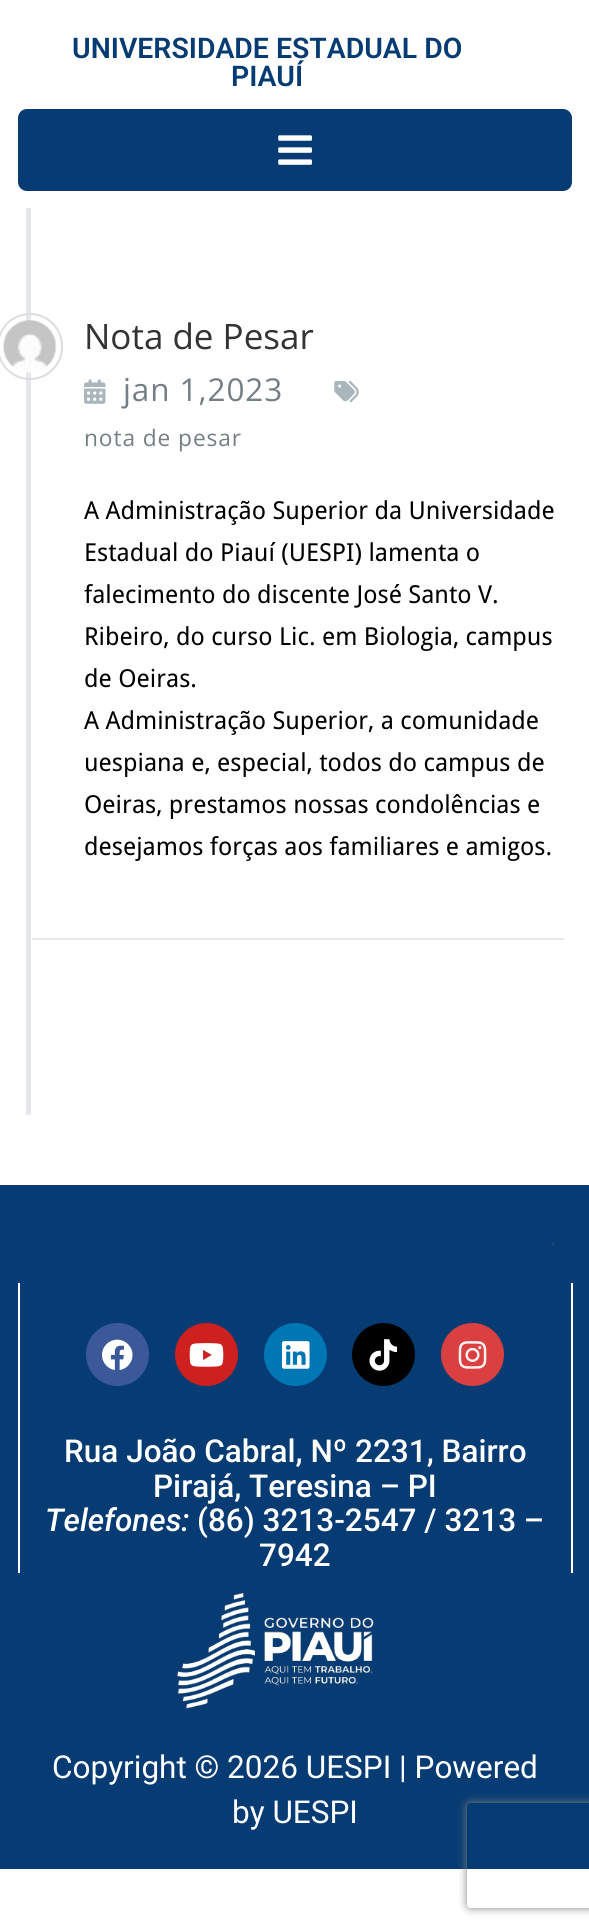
#include <cairo/cairo.h>
#include <math.h>
#include <stddef.h>


static void draw_spaced(cairo_t *cr, double x, double y, const char *s, double letter, double word) {
  cairo_move_to(cr, x, y);
  while (*s) {
    char ch[5] = {0};
    int n = 0;
    do ch[n++] = *s++; while ((*s & 0xC0) == 0x80);
    cairo_show_text(cr, ch);
    cairo_rel_move_to(cr, letter + word * (*ch == ' '), 0);
  }
}

static void rounded_rect(cairo_t *cr, double x, double y, double w, double h, double r) {
  cairo_new_sub_path(cr);
  cairo_arc(cr, x + w - r, y + h - r, r, 0, M_PI / 2);
  cairo_arc(cr, x + r, y + h - r, r, M_PI / 2, M_PI);
  cairo_arc(cr, x + r, y + r, r, M_PI, 1.5 * M_PI);
  cairo_arc(cr, x + w - r, y + r, r, 1.5 * M_PI, 2 * M_PI);
  cairo_close_path(cr);
}

static void draw_shadow(cairo_t *cr, double x, double y, double w, double h, double r, double blur, double alpha) {
  cairo_push_group_with_content(cr, CAIRO_CONTENT_ALPHA);
  cairo_set_operator(cr, CAIRO_OPERATOR_SOURCE);
  for (int i = 15; i >= -15 && fmin(w, h) + blur * i / 3 > 0; i -= 2) {
    double e = blur * i / 6;
    cairo_set_source_rgba(cr, 0, 0, 0, alpha * erfc((i - 1) / 8.5) / 2);
    rounded_rect(cr, x - e, y - e, w + 2 * e, h + 2 * e, fmax(0, fmin(r + e + blur * .6, fmin(w, h) / 2 + e)));
    cairo_fill(cr);
  }
  cairo_pattern_t *soft = cairo_pop_group(cr);
  cairo_mask(cr, soft);
  cairo_pattern_destroy(soft);
}

static void draw_image(cairo_t *cr, const char *path, double x, double y, double w, double h) {
  cairo_surface_t *image = cairo_image_surface_create_from_png(path);
  cairo_save(cr);
  cairo_set_source_surface(cr, image, x, y);
  cairo_rectangle(cr, x, y, w, h);
  cairo_fill(cr);
  cairo_restore(cr);
  cairo_surface_destroy(image);
}

static void draw(cairo_t *cr) {
  cairo_set_source_rgb(cr, 1, 1, 1);
  cairo_paint(cr);
  cairo_set_source_rgb(cr, 6 / 255.0, 60 / 255.0, 115 / 255.0);
  rounded_rect(cr, 18, 109, 554, 82, 9);
  cairo_fill(cr);
  draw_image(cr, "images/1.png", 278, 135, 34, 30);
  cairo_set_source_rgb(cr, 228 / 255.0, 232 / 255.0, 234 / 255.0);
  cairo_rectangle(cr, 26, 208, 5, 907);
  cairo_fill(cr);
  cairo_rectangle(cr, 32, 938, 532, 2);
  cairo_fill(cr);
  rounded_rect(cr, -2, 314, 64, 65, 32);
  cairo_set_source_rgb(cr, 221 / 255.0, 221 / 255.0, 221 / 255.0);
  cairo_stroke(cr);
  draw_image(cr, "images/2.png", 3, 320, 54, 53);
  draw_image(cr, "images/3.png", 84, 379, 22, 25);
  draw_image(cr, "images/4.png", 334, 380, 25, 23);
  cairo_set_source_rgb(cr, 6 / 255.0, 60 / 255.0, 115 / 255.0);
  cairo_rectangle(cr, 0, 1185, 589, 684);
  cairo_fill(cr);
  draw_image(cr, "images/5.png", 552, 1242, 2, 4);
  cairo_set_source_rgb(cr, 1, 1, 1);
  cairo_rectangle(cr, 571, 1283, 2, 290);
  cairo_fill(cr);
  cairo_rectangle(cr, 18, 1283, 2, 290);
  cairo_fill(cr);
  cairo_set_source_rgb(cr, 59 / 255.0, 89 / 255.0, 152 / 255.0);
  cairo_arc(cr, 117.5, 1354.5, 31.5, 0, 2 * M_PI);
  cairo_fill(cr);
  draw_image(cr, "images/6.png", 102, 1339, 31, 31);
  cairo_set_source_rgb(cr, 205 / 255.0, 32 / 255.0, 31 / 255.0);
  cairo_arc(cr, 206.5, 1354.5, 31.5, 0, 2 * M_PI);
  cairo_fill(cr);
  draw_image(cr, "images/7.png", 189, 1343, 35, 24);
  cairo_set_source_rgb(cr, 0, 119 / 255.0, 181 / 255.0);
  cairo_arc(cr, 295.5, 1354.5, 31.5, 0, 2 * M_PI);
  cairo_fill(cr);
  draw_image(cr, "images/8.png", 281, 1341, 29, 28);
  cairo_set_source_rgb(cr, 0, 0, 0);
  cairo_arc(cr, 383.5, 1354.5, 31.5, 0, 2 * M_PI);
  cairo_fill(cr);
  draw_image(cr, "images/9.png", 369, 1339, 29, 32);
  cairo_set_source_rgb(cr, 219 / 255.0, 64 / 255.0, 64 / 255.0);
  cairo_arc(cr, 472.5, 1354.5, 31.5, 0, 2 * M_PI);
  cairo_fill(cr);
  draw_image(cr, "images/10.png", 458, 1341, 29, 28);
  draw_image(cr, "images/11.png", 177, 1593, 197, 116);
  cairo_save(cr);
  cairo_set_fill_rule(cr, CAIRO_FILL_RULE_EVEN_ODD);
  cairo_new_path(cr);
  cairo_move_to(cr, 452, 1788);
  cairo_line_to(cr, 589, 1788);
  cairo_line_to(cr, 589, 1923);
  cairo_line_to(cr, 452, 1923);
  cairo_close_path(cr);
  cairo_move_to(cr, 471, 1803);
  cairo_line_to(cr, 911, 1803);
  cairo_curve_to(cr, 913, 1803, 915, 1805, 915, 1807);
  cairo_line_to(cr, 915, 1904);
  cairo_curve_to(cr, 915, 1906, 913, 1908, 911, 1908);
  cairo_line_to(cr, 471, 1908);
  cairo_curve_to(cr, 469, 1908, 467, 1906, 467, 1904);
  cairo_line_to(cr, 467, 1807);
  cairo_curve_to(cr, 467, 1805, 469, 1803, 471, 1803);
  cairo_close_path(cr);
  cairo_clip(cr);
  cairo_set_source_rgb(cr, 128 / 255.0, 128 / 255.0, 128 / 255.0);
  draw_shadow(cr, 467, 1803, 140, 105, 4, 4.5, 1);
  cairo_restore(cr);
  cairo_select_font_face(cr, "Roboto SemiBold", CAIRO_FONT_SLANT_NORMAL, CAIRO_FONT_WEIGHT_NORMAL);
  cairo_set_font_size(cr, 28.4);
  cairo_set_source_rgb(cr, 6 / 255.0, 60 / 255.0, 115 / 255.0);
  cairo_move_to(cr, 72, 58);
  cairo_show_text(cr, "UNIVERSIDADE ESTADUAL DO");
  cairo_move_to(cr, 231, 86);
  cairo_show_text(cr, "PIAUÍ");
  cairo_select_font_face(cr, "Open Sans", CAIRO_FONT_SLANT_NORMAL, CAIRO_FONT_WEIGHT_NORMAL);
  cairo_set_font_size(cr, 35);
  cairo_set_source_rgb(cr, 51 / 255.0, 51 / 255.0, 51 / 255.0);
  cairo_move_to(cr, 84, 349);
  cairo_show_text(cr, "Nota de Pesar");
  cairo_set_font_size(cr, 31.5);
  cairo_set_source_rgb(cr, 115 / 255.0, 127 / 255.0, 133 / 255.0);
  draw_spaced(cr, 123, 401, "jan 1,2023", 0.9, 0);
  cairo_set_font_size(cr, 22.75);
  draw_spaced(cr, 84, 446, "nota de pesar", 0.9, 0);
  cairo_select_font_face(cr, "Droid Sans", CAIRO_FONT_SLANT_NORMAL, CAIRO_FONT_WEIGHT_NORMAL);
  cairo_set_font_size(cr, 24.75);
  cairo_set_source_rgb(cr, 0, 0, 0);
  cairo_move_to(cr, 84, 519);
  cairo_show_text(cr, "A Administração Superior da Universidade");
  cairo_move_to(cr, 84, 561);
  cairo_show_text(cr, "Estadual do Piauí (UESPI) lamenta o");
  cairo_move_to(cr, 84, 603);
  cairo_show_text(cr, "falecimento do discente José Santo V.");
  cairo_move_to(cr, 84, 645);
  cairo_show_text(cr, "Ribeiro, do curso Lic. em Biologia, campus");
  cairo_move_to(cr, 84, 687);
  cairo_show_text(cr, "de Oeiras.");
  cairo_move_to(cr, 84, 729);
  cairo_show_text(cr, "A Administração Superior, a comunidade");
  cairo_move_to(cr, 84, 771);
  cairo_show_text(cr, "uespiana e, especial, todos do campus de");
  cairo_move_to(cr, 84, 813);
  cairo_show_text(cr, "Oeiras, prestamos nossas condolências e");
  cairo_move_to(cr, 84, 855);
  cairo_show_text(cr, "desejamos forças aos familiares e amigos.");
  cairo_select_font_face(cr, "Roboto Medium", CAIRO_FONT_SLANT_NORMAL, CAIRO_FONT_WEIGHT_NORMAL);
  cairo_set_font_size(cr, 31.5);
  cairo_set_source_rgb(cr, 1, 1, 1);
  cairo_move_to(cr, 64, 1462);
  cairo_show_text(cr, "Rua João Cabral, Nº 2231, Bairro");
  cairo_move_to(cr, 153, 1497);
  cairo_show_text(cr, "Pirajá, Teresina – PI");
  cairo_select_font_face(cr, "Roboto Medium", CAIRO_FONT_SLANT_ITALIC, CAIRO_FONT_WEIGHT_NORMAL);
  cairo_move_to(cr, 45, 1531);
  cairo_show_text(cr, "Telefones:");
  cairo_select_font_face(cr, "Roboto Medium", CAIRO_FONT_SLANT_NORMAL, CAIRO_FONT_WEIGHT_NORMAL);
  cairo_move_to(cr, 197, 1531);
  cairo_show_text(cr, "(86) 3213-2547 / 3213 –");
  cairo_move_to(cr, 259, 1566);
  cairo_show_text(cr, "7942");
  cairo_select_font_face(cr, "Roboto", CAIRO_FONT_SLANT_NORMAL, CAIRO_FONT_WEIGHT_NORMAL);
  cairo_move_to(cr, 52, 1778);
  cairo_show_text(cr, "Copyright © 2026 UESPI | Powered");
  cairo_move_to(cr, 232, 1823);
  cairo_show_text(cr, "by UESPI");
}

int main(void) {
  cairo_surface_t *surface = cairo_image_surface_create(CAIRO_FORMAT_RGB24, 589, 1932);
  cairo_t *cr = cairo_create(surface);
  cairo_font_options_t *options = cairo_font_options_create();
  cairo_font_options_set_hint_metrics(options, CAIRO_HINT_METRICS_OFF);
  cairo_font_options_set_hint_style(options, CAIRO_HINT_STYLE_NONE);
  cairo_set_font_options(cr, options);
  cairo_set_miter_limit(cr, 4);
  draw(cr);
  cairo_surface_write_to_png(surface, "out.png");
  cairo_font_options_destroy(options);
  cairo_destroy(cr);
  cairo_surface_destroy(surface);
  return 0;
}
